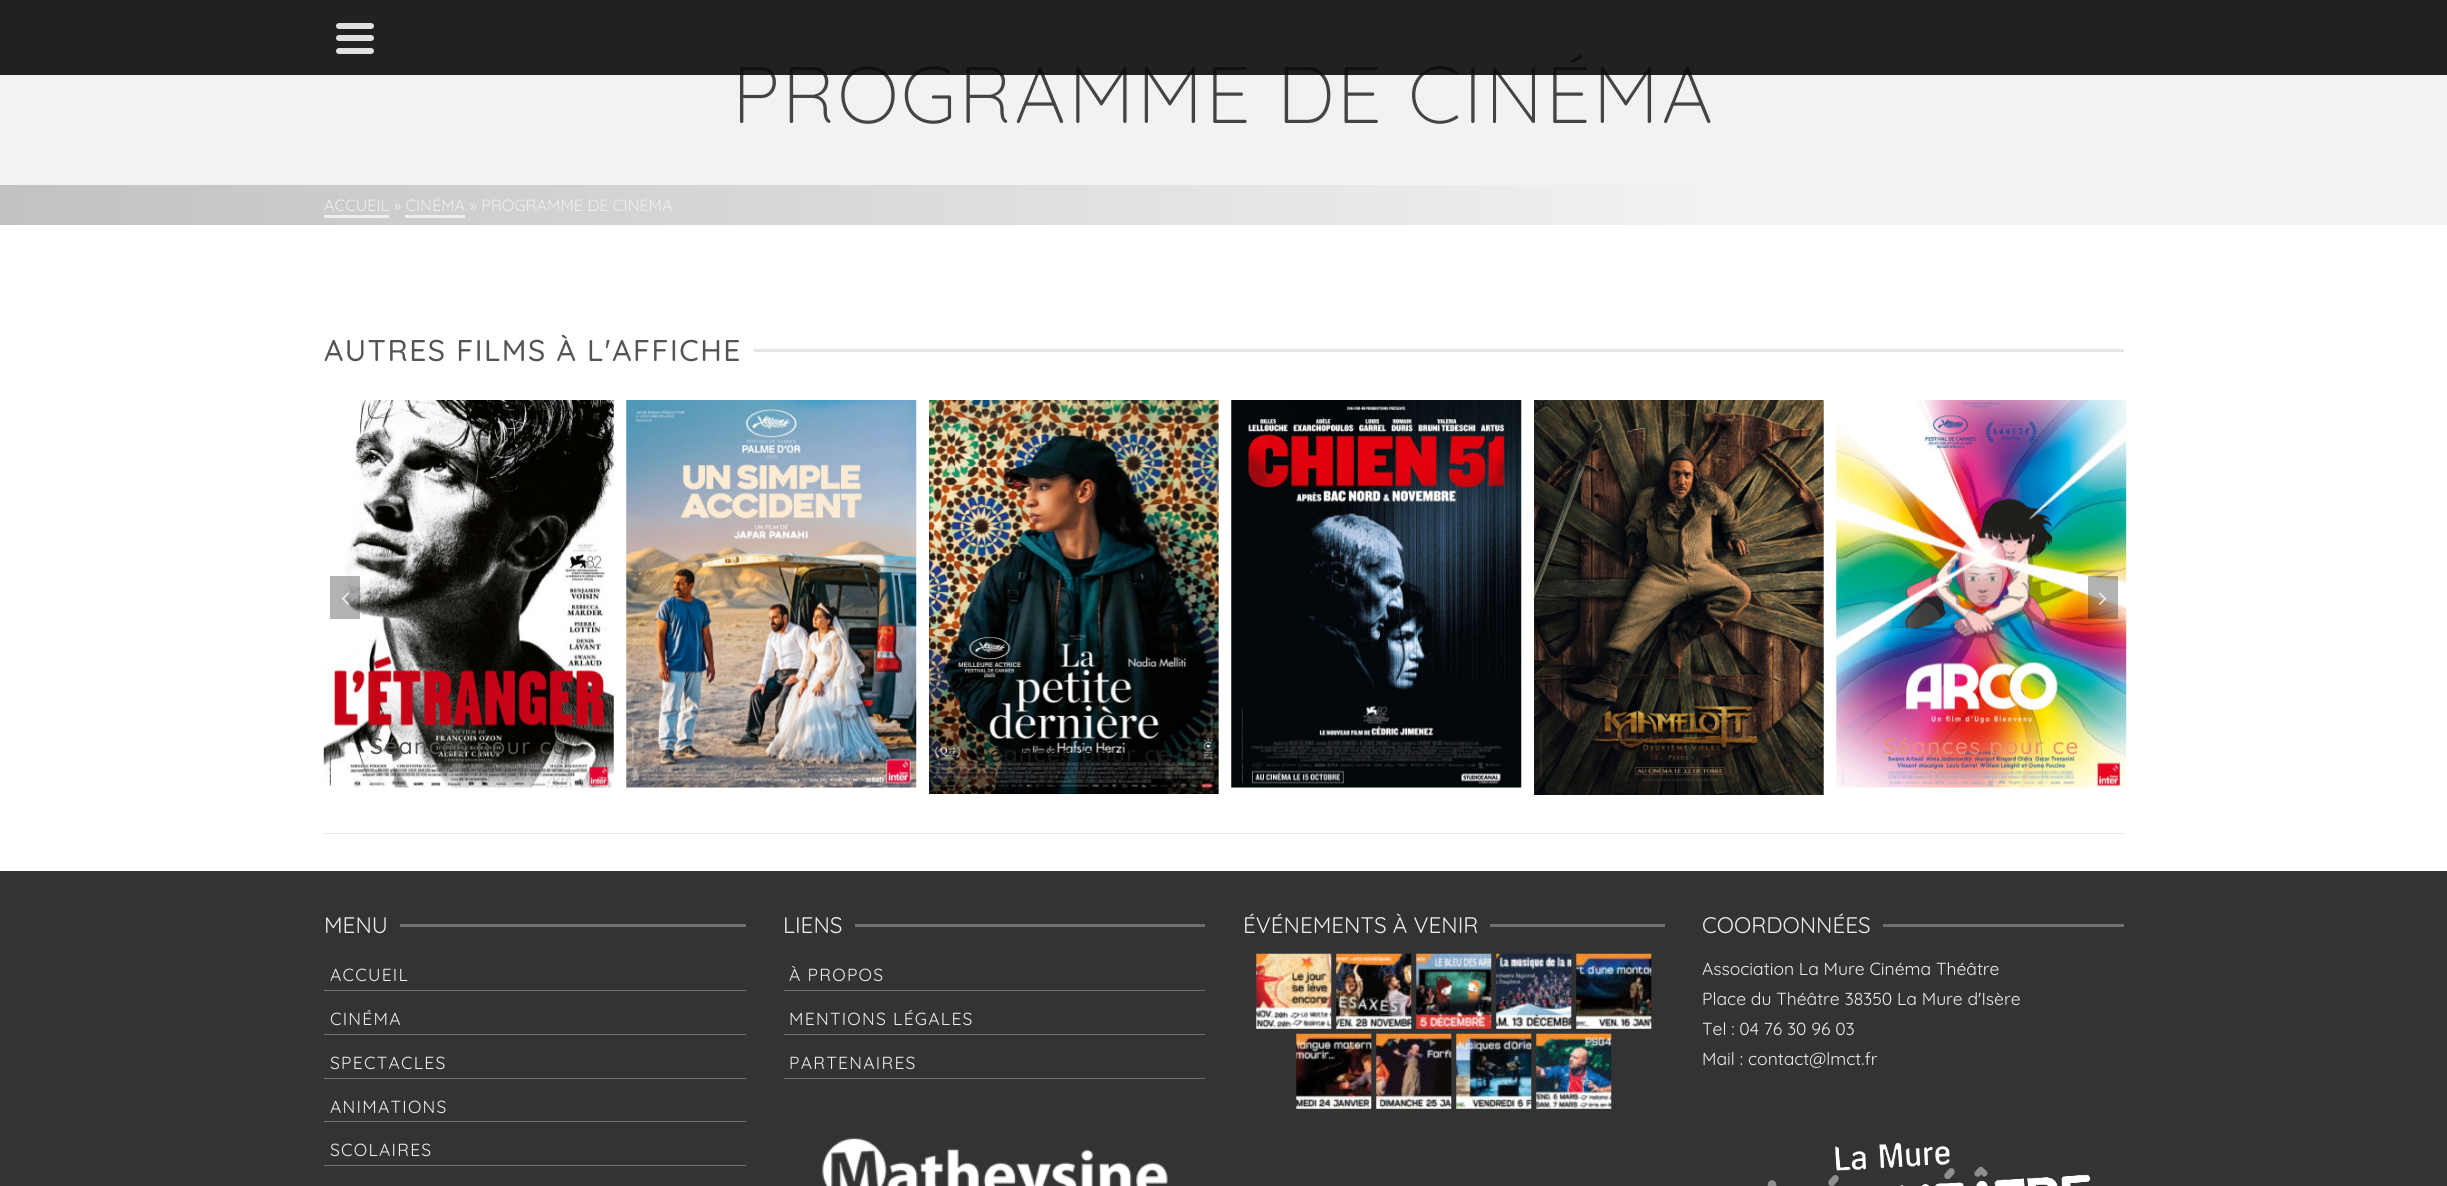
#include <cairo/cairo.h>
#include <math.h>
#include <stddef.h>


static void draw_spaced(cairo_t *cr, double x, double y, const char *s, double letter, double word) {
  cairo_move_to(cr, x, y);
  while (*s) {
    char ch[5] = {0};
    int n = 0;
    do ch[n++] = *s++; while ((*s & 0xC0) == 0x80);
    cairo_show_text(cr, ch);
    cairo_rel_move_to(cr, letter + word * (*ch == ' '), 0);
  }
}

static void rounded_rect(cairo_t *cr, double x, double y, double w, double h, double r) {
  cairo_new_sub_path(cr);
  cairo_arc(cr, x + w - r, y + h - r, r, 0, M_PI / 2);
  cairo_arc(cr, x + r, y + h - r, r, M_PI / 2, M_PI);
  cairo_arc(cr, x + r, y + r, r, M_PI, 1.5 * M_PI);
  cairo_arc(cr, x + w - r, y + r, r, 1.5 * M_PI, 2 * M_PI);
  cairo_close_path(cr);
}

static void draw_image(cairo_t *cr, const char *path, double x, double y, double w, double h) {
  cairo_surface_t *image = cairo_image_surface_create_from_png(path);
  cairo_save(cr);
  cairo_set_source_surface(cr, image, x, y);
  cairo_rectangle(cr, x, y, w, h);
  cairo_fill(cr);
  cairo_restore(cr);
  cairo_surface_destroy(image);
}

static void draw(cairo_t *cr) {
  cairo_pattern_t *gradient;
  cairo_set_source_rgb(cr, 1, 1, 1);
  cairo_paint(cr);
  cairo_set_source_rgb(cr, 242 / 255.0, 242 / 255.0, 242 / 255.0);
  cairo_rectangle(cr, 0, 0, 2447, 185);
  cairo_fill(cr);
  gradient = cairo_pattern_create_linear(0, 205, 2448, 205);
  cairo_pattern_add_color_stop_rgba(gradient, 0, 194 / 255.0, 194 / 255.0, 194 / 255.0, 1);
  cairo_pattern_add_color_stop_rgba(gradient, 0.7, 242 / 255.0, 242 / 255.0, 242 / 255.0, 1);
  cairo_set_source(cr, gradient);
  cairo_pattern_destroy(gradient);
  cairo_rectangle(cr, 0, 185, 2447, 40);
  cairo_fill(cr);
  cairo_set_source_rgb(cr, 238 / 255.0, 238 / 255.0, 238 / 255.0);
  cairo_rectangle(cr, 324, 215, 65, 3);
  cairo_fill(cr);
  cairo_rectangle(cr, 405, 215, 60, 3);
  cairo_fill(cr);
  cairo_set_source_rgb(cr, 230 / 255.0, 230 / 255.0, 230 / 255.0);
  cairo_rectangle(cr, 324, 833, 1800, 1);
  cairo_fill(cr);
  cairo_rectangle(cr, 754, 349, 1370, 3);
  cairo_fill(cr);
  draw_image(cr, "images/3.png", 323, 400, 291, 388);
  cairo_set_source_rgba(cr, 0, 0, 0, 0.3);
  cairo_rectangle(cr, 330, 576, 30, 43);
  cairo_fill(cr);
  draw_image(cr, "images/1.png", 341, 592, 8, 13);
  draw_image(cr, "images/8.png", 1836, 400, 291, 388);
  cairo_rectangle(cr, 2088, 576, 30, 43);
  cairo_fill(cr);
  draw_image(cr, "images/2.png", 2099, 592, 8, 13);
  draw_image(cr, "images/4.png", 626, 400, 291, 388);
  draw_image(cr, "images/5.png", 929, 400, 290, 394);
  draw_image(cr, "images/6.png", 1231, 400, 291, 388);
  draw_image(cr, "images/7.png", 1534, 400, 290, 395);
  cairo_set_source_rgb(cr, 51 / 255.0, 51 / 255.0, 51 / 255.0);
  cairo_rectangle(cr, 0, 871, 2447, 315);
  cairo_fill(cr);
  cairo_set_source_rgb(cr, 112 / 255.0, 112 / 255.0, 112 / 255.0);
  cairo_rectangle(cr, 400, 924, 346, 3);
  cairo_fill(cr);
  cairo_rectangle(cr, 324, 990, 422, 1);
  cairo_fill(cr);
  cairo_rectangle(cr, 324, 1034, 422, 1);
  cairo_fill(cr);
  cairo_rectangle(cr, 324, 1078, 422, 1);
  cairo_fill(cr);
  cairo_rectangle(cr, 324, 1121, 422, 1);
  cairo_fill(cr);
  cairo_rectangle(cr, 324, 1165, 422, 1);
  cairo_fill(cr);
  cairo_rectangle(cr, 855, 924, 350, 3);
  cairo_fill(cr);
  cairo_rectangle(cr, 784, 990, 421, 1);
  cairo_fill(cr);
  cairo_rectangle(cr, 784, 1034, 421, 1);
  cairo_fill(cr);
  cairo_rectangle(cr, 784, 1078, 421, 1);
  cairo_fill(cr);
  draw_image(cr, "images/9.png", 822, 1138, 346, 48);
  cairo_rectangle(cr, 1490, 924, 175, 3);
  cairo_fill(cr);
  draw_image(cr, "images/10.png", 1256, 953, 76, 76);
  draw_image(cr, "images/11.png", 1336, 953, 76, 76);
  draw_image(cr, "images/12.png", 1416, 953, 76, 76);
  draw_image(cr, "images/13.png", 1496, 953, 76, 76);
  draw_image(cr, "images/14.png", 1576, 953, 76, 76);
  draw_image(cr, "images/15.png", 1296, 1033, 76, 76);
  draw_image(cr, "images/16.png", 1376, 1033, 76, 76);
  draw_image(cr, "images/17.png", 1456, 1033, 76, 76);
  draw_image(cr, "images/18.png", 1536, 1033, 76, 76);
  cairo_rectangle(cr, 1883, 924, 241, 3);
  cairo_fill(cr);
  draw_image(cr, "images/19.png", 1767, 1142, 324, 44);
  cairo_select_font_face(cr, "Quicksand Light", CAIRO_FONT_SLANT_NORMAL, CAIRO_FONT_WEIGHT_NORMAL);
  cairo_set_font_size(cr, 80);
  cairo_set_source_rgb(cr, 68 / 255.0, 68 / 255.0, 68 / 255.0);
  draw_spaced(cr, 732, 123, "PROGRAMME DE CINÉMA", 2.25, 0);
  cairo_set_source_rgba(cr, 10 / 255.0, 10 / 255.0, 10 / 255.0, 0.9);
  cairo_rectangle(cr, 0, 0, 2447, 75);
  cairo_fill(cr);
  cairo_set_source_rgb(cr, 224 / 255.0, 224 / 255.0, 224 / 255.0);
  rounded_rect(cr, 336, 48, 38, 6, 3);
  cairo_fill(cr);
  rounded_rect(cr, 336, 35, 38, 6, 3);
  cairo_fill(cr);
  rounded_rect(cr, 336, 23, 38, 6, 3);
  cairo_fill(cr);
  cairo_select_font_face(cr, "Quicksand", CAIRO_FONT_SLANT_NORMAL, CAIRO_FONT_WEIGHT_NORMAL);
  cairo_set_font_size(cr, 16.25);
  cairo_set_source_rgb(cr, 238 / 255.0, 238 / 255.0, 238 / 255.0);
  cairo_move_to(cr, 324, 211);
  cairo_show_text(cr, "ACCUEIL » CINÉMA » PROGRAMME DE CINÉMA");
  cairo_select_font_face(cr, "Quicksand Medium", CAIRO_FONT_SLANT_NORMAL, CAIRO_FONT_WEIGHT_NORMAL);
  cairo_set_font_size(cr, 30);
  cairo_set_source_rgb(cr, 85 / 255.0, 84 / 255.0, 81 / 255.0);
  draw_spaced(cr, 324, 361, "AUTRES FILMS À L'AFFICHE", 1.5, 0);
  cairo_set_font_size(cr, 22.5);
  draw_spaced(cr, 370, 754, "Séances pour ce", 1.5, 0);
  cairo_set_source_rgb(cr, 25 / 255.0, 28 / 255.0, 25 / 255.0);
  draw_spaced(cr, 975, 762, "Séances pour ce", 1.5, 0);
  cairo_set_source_rgb(cr, 235 / 255.0, 144 / 255.0, 116 / 255.0);
  draw_spaced(cr, 1883, 754, "Séances pour ce", 1.5, 0);
  cairo_select_font_face(cr, "Quicksand", CAIRO_FONT_SLANT_NORMAL, CAIRO_FONT_WEIGHT_NORMAL);
  cairo_set_source_rgb(cr, 238 / 255.0, 238 / 255.0, 238 / 255.0);
  cairo_move_to(cr, 324, 933);
  cairo_show_text(cr, "MENU");
  cairo_set_font_size(cr, 17.5);
  draw_spaced(cr, 330, 981, "ACCUEIL", 1.25, 0);
  draw_spaced(cr, 330, 1025, "CINÉMA", 1.25, 0);
  draw_spaced(cr, 330, 1069, "SPECTACLES", 1.25, 0);
  draw_spaced(cr, 330, 1113, "ANIMATIONS", 1.25, 0);
  draw_spaced(cr, 330, 1156, "SCOLAIRES", 1.25, 0);
  cairo_set_font_size(cr, 22.5);
  cairo_move_to(cr, 783, 933);
  cairo_show_text(cr, "LIENS");
  cairo_set_font_size(cr, 17.5);
  draw_spaced(cr, 789, 981, "À PROPOS", 1.25, 0);
  draw_spaced(cr, 789, 1025, "MENTIONS LÉGALES", 1.25, 0);
  draw_spaced(cr, 789, 1069, "PARTENAIRES", 1.25, 0);
  cairo_set_font_size(cr, 22.5);
  cairo_move_to(cr, 1243, 933);
  cairo_show_text(cr, "ÉVÉNEMENTS À VENIR");
  cairo_move_to(cr, 1702, 933);
  cairo_show_text(cr, "COORDONNÉES");
  cairo_set_font_size(cr, 17.5);
  cairo_move_to(cr, 1702, 975);
  cairo_show_text(cr, "Association La Mure Cinéma Théâtre");
  cairo_move_to(cr, 1702, 1005);
  cairo_show_text(cr, "Place du Théâtre 38350 La Mure d'Isère");
  cairo_move_to(cr, 1702, 1035);
  cairo_show_text(cr, "Tel : 04 76 30 96 03");
  cairo_move_to(cr, 1702, 1065);
  cairo_show_text(cr, "Mail :");
  cairo_move_to(cr, 1748, 1065);
  cairo_show_text(cr, "contact@lmct.fr");
}

int main(void) {
  cairo_surface_t *surface = cairo_image_surface_create(CAIRO_FORMAT_RGB24, 2447, 1186);
  cairo_t *cr = cairo_create(surface);
  cairo_font_options_t *options = cairo_font_options_create();
  cairo_font_options_set_hint_metrics(options, CAIRO_HINT_METRICS_OFF);
  cairo_font_options_set_hint_style(options, CAIRO_HINT_STYLE_NONE);
  cairo_set_font_options(cr, options);
  cairo_set_miter_limit(cr, 4);
  draw(cr);
  cairo_surface_write_to_png(surface, "out.png");
  cairo_font_options_destroy(options);
  cairo_destroy(cr);
  cairo_surface_destroy(surface);
  return 0;
}
